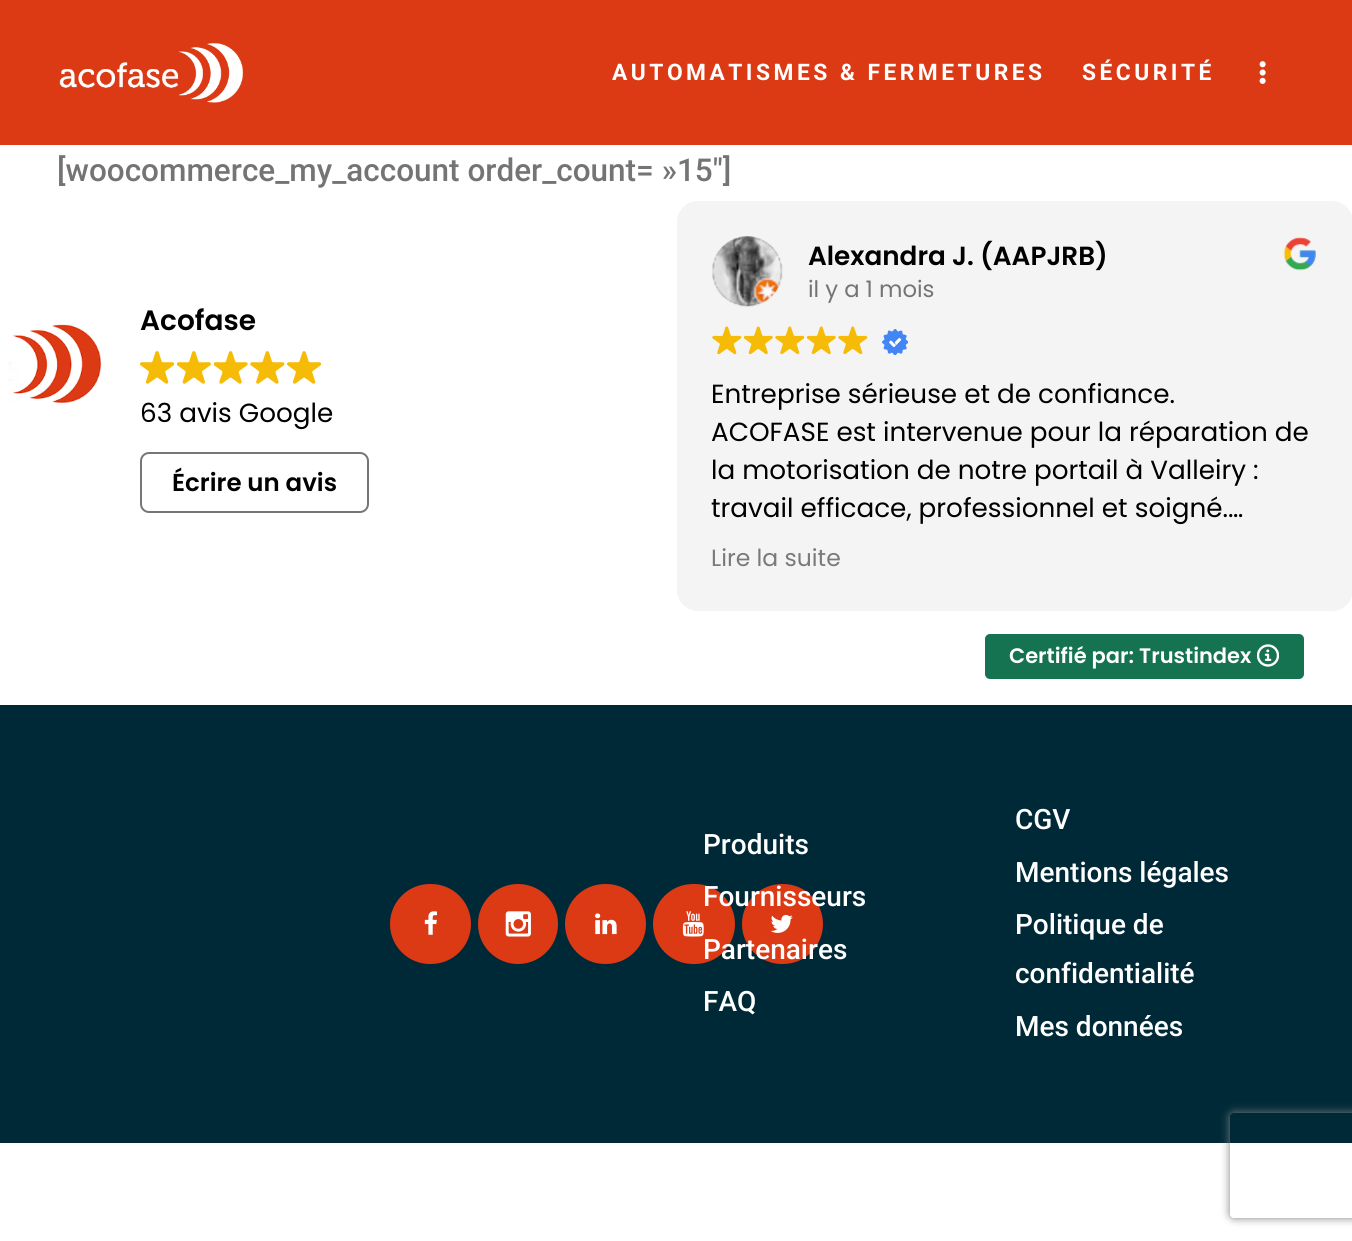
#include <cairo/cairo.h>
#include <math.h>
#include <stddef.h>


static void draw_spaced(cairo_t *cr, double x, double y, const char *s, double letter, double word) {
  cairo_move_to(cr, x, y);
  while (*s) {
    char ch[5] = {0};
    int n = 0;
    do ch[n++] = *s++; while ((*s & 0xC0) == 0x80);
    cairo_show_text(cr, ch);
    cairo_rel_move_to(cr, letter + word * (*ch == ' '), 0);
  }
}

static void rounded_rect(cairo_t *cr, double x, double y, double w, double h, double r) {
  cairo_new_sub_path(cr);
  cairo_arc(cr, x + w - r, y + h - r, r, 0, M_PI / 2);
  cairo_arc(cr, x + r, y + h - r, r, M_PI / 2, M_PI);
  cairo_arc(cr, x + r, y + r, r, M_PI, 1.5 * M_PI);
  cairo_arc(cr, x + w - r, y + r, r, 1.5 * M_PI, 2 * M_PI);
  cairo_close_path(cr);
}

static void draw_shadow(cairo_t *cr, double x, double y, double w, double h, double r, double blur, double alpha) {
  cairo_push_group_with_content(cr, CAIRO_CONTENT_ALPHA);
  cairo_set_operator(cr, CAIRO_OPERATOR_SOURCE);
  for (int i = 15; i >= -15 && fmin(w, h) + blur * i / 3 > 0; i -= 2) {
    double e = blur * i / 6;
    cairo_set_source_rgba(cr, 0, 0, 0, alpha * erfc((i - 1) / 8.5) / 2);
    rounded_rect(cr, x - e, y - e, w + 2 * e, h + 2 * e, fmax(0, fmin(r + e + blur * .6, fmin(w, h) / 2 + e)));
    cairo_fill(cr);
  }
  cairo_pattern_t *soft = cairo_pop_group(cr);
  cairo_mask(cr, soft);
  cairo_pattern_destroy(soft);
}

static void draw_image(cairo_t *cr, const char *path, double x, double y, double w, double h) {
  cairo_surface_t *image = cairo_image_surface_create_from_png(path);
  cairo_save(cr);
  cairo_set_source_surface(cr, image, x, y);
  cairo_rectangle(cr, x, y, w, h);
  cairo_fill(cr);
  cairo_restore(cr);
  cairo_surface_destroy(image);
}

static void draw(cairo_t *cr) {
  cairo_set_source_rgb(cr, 1, 1, 1);
  cairo_paint(cr);
  cairo_set_source_rgb(cr, 220 / 255.0, 58 / 255.0, 21 / 255.0);
  cairo_rectangle(cr, 0, 0, 1352, 145);
  cairo_fill(cr);
  draw_image(cr, "images/1.png", 59, 43, 184, 60);
  draw_image(cr, "images/2.png", 1259, 61, 7, 23);
  draw_image(cr, "images/3.png", 8, 324, 94, 79);
  draw_image(cr, "images/4.png", 140, 351, 35, 33);
  draw_image(cr, "images/5.png", 177, 351, 34, 33);
  draw_image(cr, "images/6.png", 214, 351, 34, 33);
  draw_image(cr, "images/7.png", 250, 351, 35, 33);
  draw_image(cr, "images/4.png", 287, 351, 35, 33);
  rounded_rect(cr, 141, 453, 227, 59, 8);
  cairo_set_source_rgb(cr, 118 / 255.0, 118 / 255.0, 118 / 255.0);
  cairo_stroke(cr);
  cairo_set_source_rgb(cr, 244 / 255.0, 244 / 255.0, 244 / 255.0);
  rounded_rect(cr, 677, 201, 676, 410, 21);
  cairo_fill(cr);
  draw_image(cr, "images/8.png", 712, 236, 71, 71);
  draw_image(cr, "images/9.png", 1283, 237, 33, 34);
  draw_image(cr, "images/10.png", 712, 326, 30, 29);
  draw_image(cr, "images/11.png", 744, 326, 29, 29);
  draw_image(cr, "images/10.png", 775, 326, 30, 29);
  draw_image(cr, "images/11.png", 807, 326, 29, 29);
  draw_image(cr, "images/10.png", 838, 326, 30, 29);
  draw_image(cr, "images/12.png", 882, 329, 26, 26);
  cairo_set_source_rgb(cr, 21 / 255.0, 115 / 255.0, 81 / 255.0);
  rounded_rect(cr, 985, 634, 319, 45, 5);
  cairo_fill(cr);
  draw_image(cr, "images/13.png", 1257, 644, 22, 23);
  cairo_set_source_rgb(cr, 0, 41 / 255.0, 56 / 255.0);
  cairo_rectangle(cr, 0, 705, 1352, 438);
  cairo_fill(cr);
  cairo_set_source_rgb(cr, 220 / 255.0, 58 / 255.0, 21 / 255.0);
  rounded_rect(cr, 390, 884, 81, 80, 40);
  cairo_fill(cr);
  draw_image(cr, "images/14.png", 424, 911, 13, 24);
  cairo_arc(cr, 518, 924, 40, 0, 2 * M_PI);
  cairo_fill(cr);
  draw_image(cr, "images/15.png", 505, 911, 26, 26);
  rounded_rect(cr, 565, 884, 81, 80, 40);
  cairo_fill(cr);
  draw_image(cr, "images/16.png", 595, 913, 22, 22);
  rounded_rect(cr, 653, 884, 82, 80, 40);
  cairo_fill(cr);
  draw_image(cr, "images/17.png", 682, 911, 22, 26);
  rounded_rect(cr, 742, 884, 81, 80, 40);
  cairo_fill(cr);
  draw_image(cr, "images/18.png", 770, 914, 23, 19);
  cairo_save(cr);
  cairo_set_fill_rule(cr, CAIRO_FILL_RULE_EVEN_ODD);
  cairo_new_path(cr);
  cairo_move_to(cr, 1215, 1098);
  cairo_line_to(cr, 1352, 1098);
  cairo_line_to(cr, 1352, 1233);
  cairo_line_to(cr, 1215, 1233);
  cairo_close_path(cr);
  cairo_move_to(cr, 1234, 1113);
  cairo_line_to(cr, 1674, 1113);
  cairo_curve_to(cr, 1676, 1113, 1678, 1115, 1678, 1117);
  cairo_line_to(cr, 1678, 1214);
  cairo_curve_to(cr, 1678, 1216, 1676, 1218, 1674, 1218);
  cairo_line_to(cr, 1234, 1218);
  cairo_curve_to(cr, 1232, 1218, 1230, 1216, 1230, 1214);
  cairo_line_to(cr, 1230, 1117);
  cairo_curve_to(cr, 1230, 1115, 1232, 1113, 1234, 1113);
  cairo_close_path(cr);
  cairo_clip(cr);
  cairo_set_source_rgb(cr, 128 / 255.0, 128 / 255.0, 128 / 255.0);
  draw_shadow(cr, 1230, 1113, 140, 105, 4, 4.5, 1);
  cairo_restore(cr);
  cairo_select_font_face(cr, "Roboto", CAIRO_FONT_SLANT_NORMAL, CAIRO_FONT_WEIGHT_BOLD);
  cairo_set_font_size(cr, 22.75);
  cairo_set_source_rgb(cr, 1, 1, 1);
  draw_spaced(cr, 612, 80, "AUTOMATISMES & FERMETURES", 3.5, 0);
  draw_spaced(cr, 1082, 80, "SÉCURITÉ", 3.5, 0);
  cairo_select_font_face(cr, "Roboto Medium", CAIRO_FONT_SLANT_NORMAL, CAIRO_FONT_WEIGHT_NORMAL);
  cairo_set_font_size(cr, 31.5);
  cairo_set_source_rgb(cr, 116 / 255.0, 116 / 255.0, 116 / 255.0);
  cairo_move_to(cr, 57, 181);
  cairo_show_text(cr, "[woocommerce_my_account order_count= »15″]");
  cairo_select_font_face(cr, "Poppins SemiBold", CAIRO_FONT_SLANT_NORMAL, CAIRO_FONT_WEIGHT_NORMAL);
  cairo_set_font_size(cr, 28);
  cairo_set_source_rgb(cr, 0, 0, 0);
  cairo_move_to(cr, 140, 330);
  cairo_show_text(cr, "Acofase");
  cairo_select_font_face(cr, "Poppins", CAIRO_FONT_SLANT_NORMAL, CAIRO_FONT_WEIGHT_NORMAL);
  cairo_set_font_size(cr, 26.25);
  cairo_move_to(cr, 140, 422);
  cairo_show_text(cr, "63 avis Google");
  cairo_select_font_face(cr, "Poppins SemiBold", CAIRO_FONT_SLANT_NORMAL, CAIRO_FONT_WEIGHT_NORMAL);
  cairo_set_font_size(cr, 24.5);
  cairo_move_to(cr, 172, 491);
  cairo_show_text(cr, "Écrire un avis");
  cairo_set_font_size(cr, 26.25);
  cairo_move_to(cr, 808, 265);
  cairo_show_text(cr, "Alexandra J. (AAPJRB)");
  cairo_select_font_face(cr, "Poppins", CAIRO_FONT_SLANT_NORMAL, CAIRO_FONT_WEIGHT_NORMAL);
  cairo_set_font_size(cr, 22.75);
  cairo_set_source_rgb(cr, 116 / 255.0, 116 / 255.0, 116 / 255.0);
  cairo_move_to(cr, 808, 297);
  cairo_show_text(cr, "il y a 1 mois");
  cairo_set_font_size(cr, 26.25);
  cairo_set_source_rgb(cr, 0, 0, 0);
  cairo_move_to(cr, 711, 403);
  cairo_show_text(cr, "Entreprise sérieuse et de confiance.");
  cairo_move_to(cr, 711, 441);
  cairo_show_text(cr, "ACOFASE est intervenue pour la réparation de");
  cairo_move_to(cr, 711, 479);
  cairo_show_text(cr, "la motorisation de notre portail à Valleiry :");
  cairo_move_to(cr, 711, 517);
  cairo_show_text(cr, "travail efficace, professionnel et soigné.…");
  cairo_set_font_size(cr, 23.5);
  cairo_set_source_rgb(cr, 122 / 255.0, 122 / 255.0, 122 / 255.0);
  cairo_move_to(cr, 711, 566);
  cairo_show_text(cr, "Lire la suite");
  cairo_select_font_face(cr, "Poppins SemiBold", CAIRO_FONT_SLANT_NORMAL, CAIRO_FONT_WEIGHT_NORMAL);
  cairo_set_font_size(cr, 21);
  cairo_set_source_rgb(cr, 1, 1, 1);
  cairo_move_to(cr, 1009, 663);
  cairo_show_text(cr, "Certifié par: Trustindex");
  cairo_select_font_face(cr, "Roboto Medium", CAIRO_FONT_SLANT_NORMAL, CAIRO_FONT_WEIGHT_NORMAL);
  cairo_set_font_size(cr, 28);
  cairo_move_to(cr, 703, 854);
  cairo_show_text(cr, "Produits");
  cairo_move_to(cr, 703, 906);
  cairo_show_text(cr, "Fournisseurs");
  cairo_move_to(cr, 703, 959);
  cairo_show_text(cr, "Partenaires");
  cairo_move_to(cr, 703, 1011);
  cairo_show_text(cr, "FAQ");
  cairo_move_to(cr, 1015, 829);
  cairo_show_text(cr, "CGV");
  cairo_move_to(cr, 1015, 882);
  cairo_show_text(cr, "Mentions légales");
  cairo_move_to(cr, 1015, 934);
  cairo_show_text(cr, "Politique de");
  cairo_move_to(cr, 1015, 983);
  cairo_show_text(cr, "confidentialité");
  cairo_move_to(cr, 1015, 1036);
  cairo_show_text(cr, "Mes données");
}

int main(void) {
  cairo_surface_t *surface = cairo_image_surface_create(CAIRO_FORMAT_RGB24, 1352, 1241);
  cairo_t *cr = cairo_create(surface);
  cairo_font_options_t *options = cairo_font_options_create();
  cairo_font_options_set_hint_metrics(options, CAIRO_HINT_METRICS_OFF);
  cairo_font_options_set_hint_style(options, CAIRO_HINT_STYLE_NONE);
  cairo_set_font_options(cr, options);
  cairo_set_miter_limit(cr, 4);
  draw(cr);
  cairo_surface_write_to_png(surface, "out.png");
  cairo_font_options_destroy(options);
  cairo_destroy(cr);
  cairo_surface_destroy(surface);
  return 0;
}
